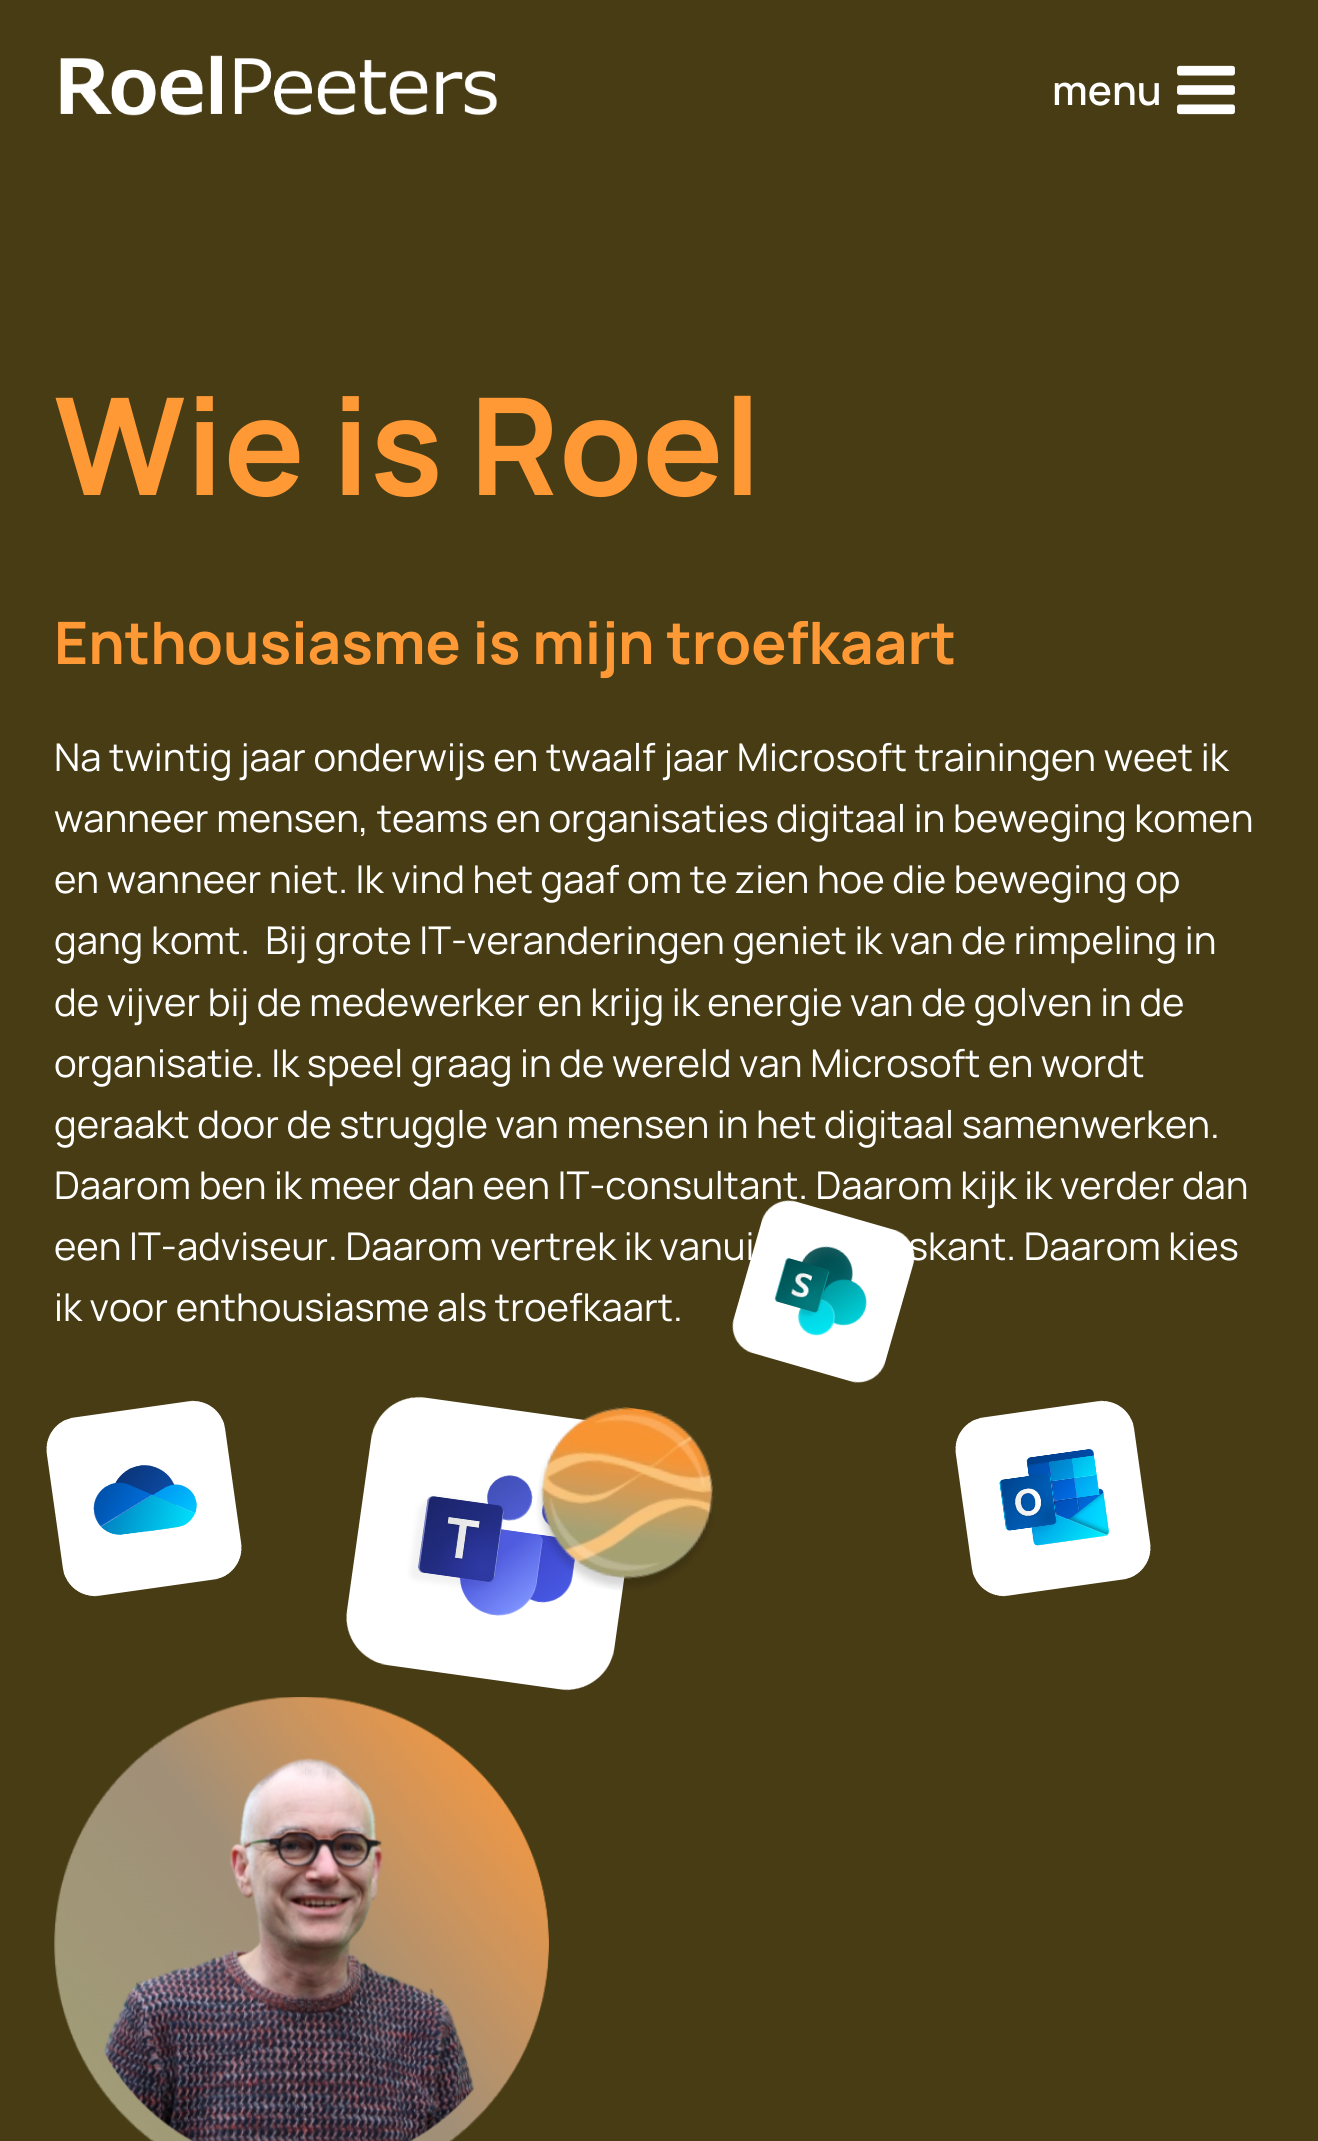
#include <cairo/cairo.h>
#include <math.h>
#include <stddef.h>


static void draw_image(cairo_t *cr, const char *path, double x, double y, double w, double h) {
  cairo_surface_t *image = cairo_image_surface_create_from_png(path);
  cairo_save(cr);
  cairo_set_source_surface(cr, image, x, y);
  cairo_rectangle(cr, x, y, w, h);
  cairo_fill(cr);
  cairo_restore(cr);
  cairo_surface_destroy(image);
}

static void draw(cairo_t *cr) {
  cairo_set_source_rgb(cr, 72 / 255.0, 60 / 255.0, 20 / 255.0);
  cairo_paint(cr);
  draw_image(cr, "images/1.png", 60, 55, 437, 61);
  draw_image(cr, "images/2.png", 1177, 65, 58, 50);
  draw_image(cr, "images/4.png", 46, 1400, 196, 197);
  draw_image(cr, "images/5.png", 346, 1396, 279, 295);
  draw_image(cr, "images/6.png", 955, 1400, 196, 197);
  draw_image(cr, "images/7.png", 536, 1406, 178, 185);
  draw_image(cr, "images/8.png", 54, 1697, 495, 444);
  cairo_select_font_face(cr, "Manrope SemiBold", CAIRO_FONT_SLANT_NORMAL, CAIRO_FONT_WEIGHT_NORMAL);
  cairo_set_font_size(cr, 40.5);
  cairo_set_source_rgb(cr, 1, 1, 1);
  cairo_move_to(cr, 1052, 105);
  cairo_show_text(cr, "menu");
  cairo_select_font_face(cr, "Manrope", CAIRO_FONT_SLANT_NORMAL, CAIRO_FONT_WEIGHT_BOLD);
  cairo_set_font_size(cr, 135);
  cairo_set_source_rgb(cr, 1, 153 / 255.0, 54 / 255.0);
  cairo_move_to(cr, 54, 495);
  cairo_show_text(cr, "Wie is Roel");
  cairo_set_font_size(cr, 58.5);
  cairo_move_to(cr, 54, 664);
  cairo_show_text(cr, "Enthousiasme is mijn troefkaart");
  cairo_select_font_face(cr, "Manrope", CAIRO_FONT_SLANT_NORMAL, CAIRO_FONT_WEIGHT_NORMAL);
  cairo_set_font_size(cr, 38.25);
  cairo_set_source_rgb(cr, 1, 1, 1);
  cairo_move_to(cr, 54, 771);
  cairo_show_text(cr, "Na twintig jaar onderwijs en twaalf jaar Microsoft trainingen weet ik");
  cairo_move_to(cr, 54, 832);
  cairo_show_text(cr, "wanneer mensen, teams en organisaties digitaal in beweging komen");
  cairo_move_to(cr, 54, 893);
  cairo_show_text(cr, "en wanneer niet. Ik vind het gaaf om te zien hoe die beweging op");
  cairo_move_to(cr, 54, 954);
  cairo_show_text(cr, "gang komt.  Bij grote IT-veranderingen geniet ik van de rimpeling in");
  cairo_move_to(cr, 54, 1016);
  cairo_show_text(cr, "de vijver bij de medewerker en krijg ik energie van de golven in de");
  cairo_move_to(cr, 54, 1077);
  cairo_show_text(cr, "organisatie. Ik speel graag in de wereld van Microsoft en wordt");
  cairo_move_to(cr, 54, 1138);
  cairo_show_text(cr, "geraakt door de struggle van mensen in het digitaal samenwerken.");
  cairo_move_to(cr, 54, 1199);
  cairo_show_text(cr, "Daarom ben ik meer dan een IT-consultant. Daarom kijk ik verder dan");
  cairo_move_to(cr, 54, 1260);
  cairo_show_text(cr, "een IT-adviseur. Daarom vertrek ik vanui");
  cairo_move_to(cr, 908, 1260);
  cairo_show_text(cr, "skant. Daarom kies");
  cairo_move_to(cr, 54, 1321);
  cairo_show_text(cr, "ik voor enthousiasme als troefkaart.");
  draw_image(cr, "images/3.png", 732, 1200, 183, 183);
}

int main(void) {
  cairo_surface_t *surface = cairo_image_surface_create(CAIRO_FORMAT_RGB24, 1318, 2141);
  cairo_t *cr = cairo_create(surface);
  cairo_font_options_t *options = cairo_font_options_create();
  cairo_font_options_set_hint_metrics(options, CAIRO_HINT_METRICS_OFF);
  cairo_font_options_set_hint_style(options, CAIRO_HINT_STYLE_NONE);
  cairo_set_font_options(cr, options);
  cairo_set_miter_limit(cr, 4);
  draw(cr);
  cairo_surface_write_to_png(surface, "out.png");
  cairo_font_options_destroy(options);
  cairo_destroy(cr);
  cairo_surface_destroy(surface);
  return 0;
}
